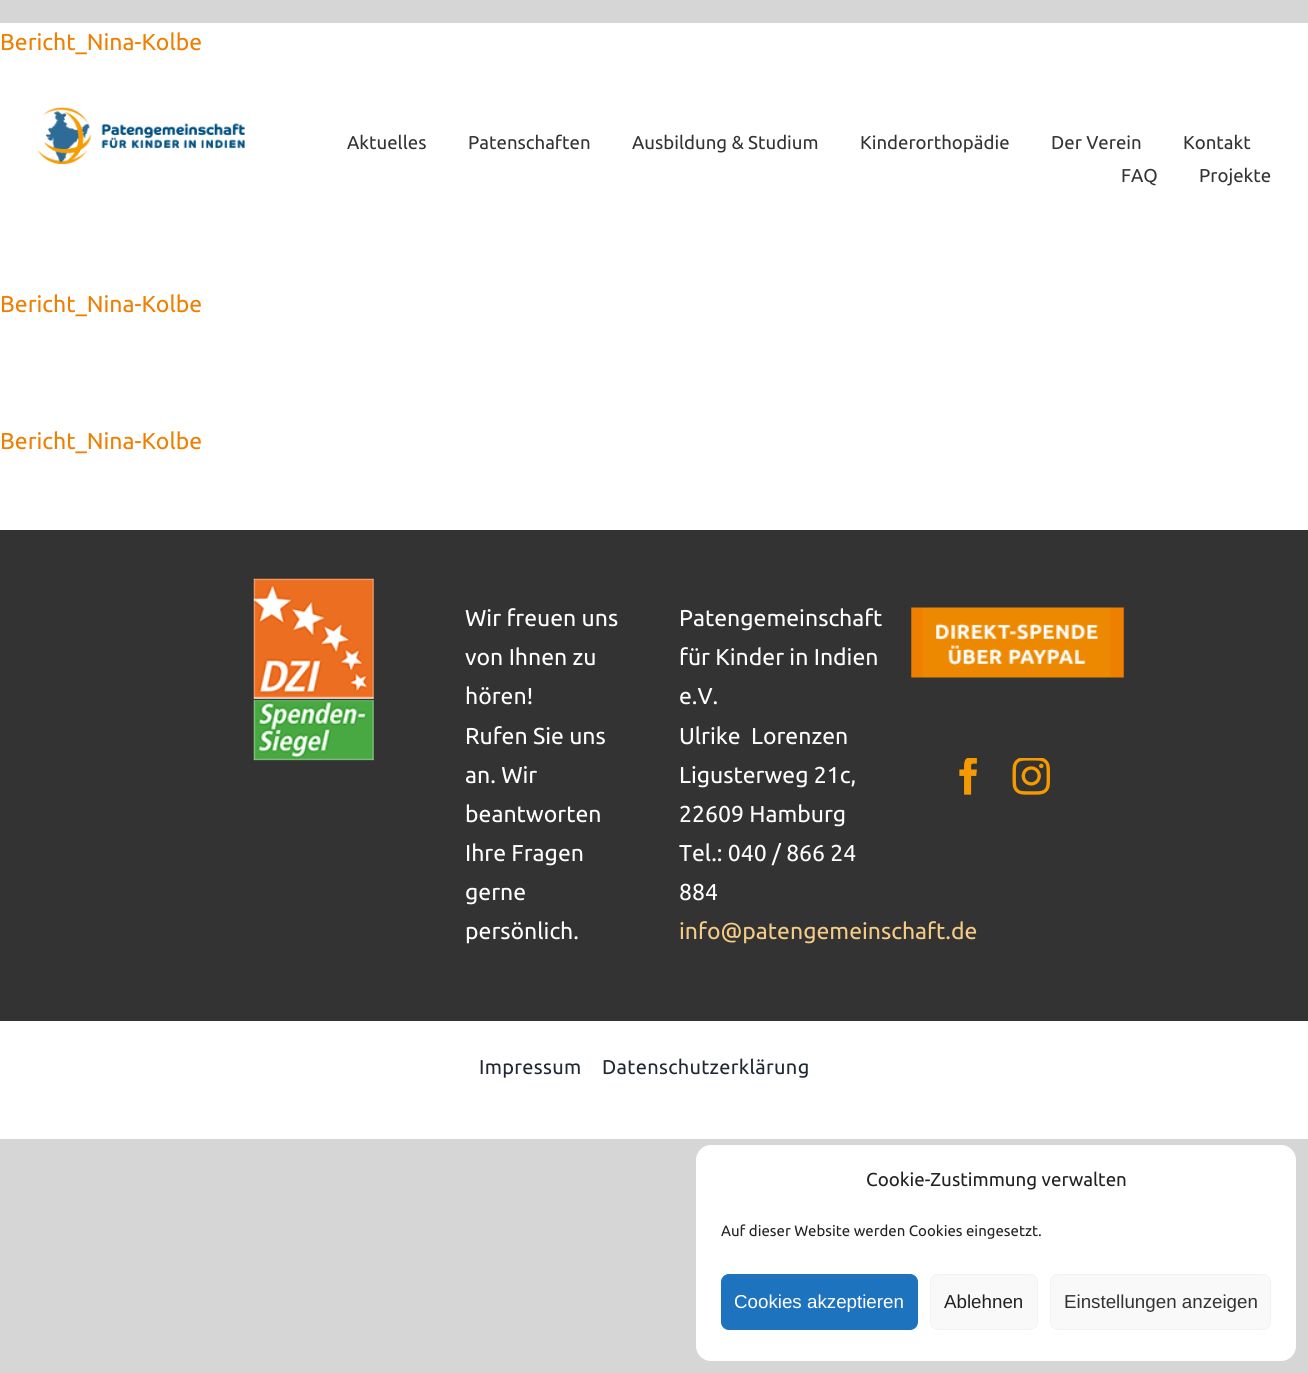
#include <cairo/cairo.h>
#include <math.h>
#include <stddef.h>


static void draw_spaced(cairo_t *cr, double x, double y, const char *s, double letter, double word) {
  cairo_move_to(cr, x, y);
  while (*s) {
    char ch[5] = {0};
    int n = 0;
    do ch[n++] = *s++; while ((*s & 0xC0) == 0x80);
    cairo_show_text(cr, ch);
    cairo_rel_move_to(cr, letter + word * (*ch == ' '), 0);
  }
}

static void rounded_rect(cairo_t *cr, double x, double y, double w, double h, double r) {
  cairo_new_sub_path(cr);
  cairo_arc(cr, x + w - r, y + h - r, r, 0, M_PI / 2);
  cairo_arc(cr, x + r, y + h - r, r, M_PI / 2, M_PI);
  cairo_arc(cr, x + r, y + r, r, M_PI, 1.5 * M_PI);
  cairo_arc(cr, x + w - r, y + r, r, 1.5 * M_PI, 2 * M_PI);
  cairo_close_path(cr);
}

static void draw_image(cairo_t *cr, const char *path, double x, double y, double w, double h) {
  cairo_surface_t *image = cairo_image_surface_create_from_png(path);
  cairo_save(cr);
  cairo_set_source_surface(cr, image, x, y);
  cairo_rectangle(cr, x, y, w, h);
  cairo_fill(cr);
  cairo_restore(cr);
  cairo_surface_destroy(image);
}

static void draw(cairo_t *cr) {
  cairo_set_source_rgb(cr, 215 / 255.0, 214 / 255.0, 214 / 255.0);
  cairo_paint(cr);
  cairo_set_source_rgb(cr, 1, 1, 1);
  cairo_rectangle(cr, 0, 23, 1308, 1116);
  cairo_fill(cr);
  draw_image(cr, "images/1.png", 37, 107, 208, 58);
  cairo_set_source_rgb(cr, 51 / 255.0, 51 / 255.0, 51 / 255.0);
  cairo_rectangle(cr, 0, 530, 1308, 491);
  cairo_fill(cr);
  draw_image(cr, "images/2.png", 253, 578, 121, 183);
  draw_image(cr, "images/3.png", 911, 607, 213, 71);
  draw_image(cr, "images/4.png", 959, 758, 18, 37);
  draw_image(cr, "images/5.png", 1012, 758, 38, 37);
  cairo_set_source_rgb(cr, 1, 1, 1);
  rounded_rect(cr, 696, 1145, 600, 216, 15);
  cairo_fill(cr);
  cairo_set_source_rgb(cr, 30 / 255.0, 115 / 255.0, 190 / 255.0);
  rounded_rect(cr, 721.5, 1274.5, 196, 55, 7.5);
  cairo_fill_preserve(cr);
  cairo_set_line_width(cr, 1);
  cairo_stroke(cr);
  cairo_set_source_rgb(cr, 249 / 255.0, 249 / 255.0, 249 / 255.0);
  rounded_rect(cr, 930.5, 1274.5, 107, 55, 7.5);
  cairo_fill_preserve(cr);
  cairo_set_source_rgb(cr, 242 / 255.0, 242 / 255.0, 242 / 255.0);
  cairo_stroke(cr);
  cairo_set_source_rgb(cr, 249 / 255.0, 249 / 255.0, 249 / 255.0);
  rounded_rect(cr, 1050.5, 1274.5, 220, 55, 7.5);
  cairo_fill_preserve(cr);
  cairo_set_source_rgb(cr, 242 / 255.0, 242 / 255.0, 242 / 255.0);
  cairo_stroke(cr);
  cairo_select_font_face(cr, "Ubuntu", CAIRO_FONT_SLANT_NORMAL, CAIRO_FONT_WEIGHT_NORMAL);
  cairo_set_font_size(cr, 23);
  cairo_set_source_rgb(cr, 238 / 255.0, 127 / 255.0, 1 / 255.0);
  cairo_move_to(cr, 0, 50);
  cairo_show_text(cr, "Bericht_Nina-Kolbe");
  cairo_set_font_size(cr, 18.6);
  cairo_set_source_rgb(cr, 51 / 255.0, 51 / 255.0, 51 / 255.0);
  cairo_move_to(cr, 347, 149);
  cairo_show_text(cr, "Aktuelles");
  cairo_move_to(cr, 468, 149);
  cairo_show_text(cr, "Patenschaften");
  cairo_move_to(cr, 632, 149);
  cairo_show_text(cr, "Ausbildung & Studium");
  cairo_move_to(cr, 860, 149);
  cairo_show_text(cr, "Kinderorthopädie");
  cairo_move_to(cr, 1051, 149);
  cairo_show_text(cr, "Der Verein");
  cairo_move_to(cr, 1183, 149);
  cairo_show_text(cr, "Kontakt");
  cairo_move_to(cr, 1121, 182);
  cairo_show_text(cr, "FAQ");
  cairo_move_to(cr, 1199, 182);
  cairo_show_text(cr, "Projekte");
  cairo_set_font_size(cr, 23);
  cairo_set_source_rgb(cr, 238 / 255.0, 127 / 255.0, 1 / 255.0);
  cairo_move_to(cr, 0, 312);
  cairo_show_text(cr, "Bericht_Nina-Kolbe");
  cairo_move_to(cr, 0, 449);
  cairo_show_text(cr, "Bericht_Nina-Kolbe");
  cairo_set_source_rgb(cr, 1, 1, 1);
  cairo_move_to(cr, 465, 626);
  cairo_show_text(cr, "Wir freuen uns");
  cairo_move_to(cr, 465, 665);
  cairo_show_text(cr, "von Ihnen zu");
  cairo_move_to(cr, 465, 704);
  cairo_show_text(cr, "hören!");
  cairo_move_to(cr, 465, 744);
  cairo_show_text(cr, "Rufen Sie uns");
  cairo_move_to(cr, 465, 783);
  cairo_show_text(cr, "an. Wir");
  cairo_move_to(cr, 465, 822);
  cairo_show_text(cr, "beantworten");
  cairo_move_to(cr, 465, 861);
  cairo_show_text(cr, "Ihre Fragen");
  cairo_move_to(cr, 465, 900);
  cairo_show_text(cr, "gerne");
  cairo_move_to(cr, 465, 939);
  cairo_show_text(cr, "persönlich.");
  cairo_move_to(cr, 679, 626);
  cairo_show_text(cr, "Patengemeinschaft");
  cairo_move_to(cr, 679, 665);
  cairo_show_text(cr, "für Kinder in Indien");
  cairo_move_to(cr, 679, 704);
  cairo_show_text(cr, "e.V.");
  draw_spaced(cr, 679, 744, "Ulrike Lorenzen", 0, 5);
  cairo_move_to(cr, 679, 783);
  cairo_show_text(cr, "Ligusterweg 21c,");
  cairo_move_to(cr, 679, 822);
  cairo_show_text(cr, "22609 Hamburg");
  cairo_move_to(cr, 679, 861);
  cairo_show_text(cr, "Tel.: 040 / 866 24");
  cairo_move_to(cr, 679, 900);
  cairo_show_text(cr, "884");
  cairo_set_source_rgb(cr, 244 / 255.0, 204 / 255.0, 134 / 255.0);
  cairo_move_to(cr, 679, 939);
  cairo_show_text(cr, "info@patengemeinschaft.de");
  cairo_set_font_size(cr, 20);
  cairo_set_source_rgb(cr, 33 / 255.0, 41 / 255.0, 52 / 255.0);
  draw_spaced(cr, 479, 1074, "Impressum", 0.3, 0);
  draw_spaced(cr, 602, 1074, "Datenschutzerklärung", 0.3, 0);
  cairo_set_font_size(cr, 18.75);
  cairo_set_source_rgb(cr, 34 / 255.0, 34 / 255.0, 34 / 255.0);
  cairo_move_to(cr, 866, 1186);
  cairo_show_text(cr, "Cookie-Zustimmung verwalten");
  cairo_set_font_size(cr, 15);
  cairo_move_to(cr, 721, 1236);
  cairo_show_text(cr, "Auf dieser Website werden Cookies eingesetzt.");
  cairo_select_font_face(cr, "Liberation Sans", CAIRO_FONT_SLANT_NORMAL, CAIRO_FONT_WEIGHT_NORMAL);
  cairo_set_font_size(cr, 18.75);
  cairo_set_source_rgb(cr, 1, 1, 1);
  cairo_move_to(cr, 734, 1308);
  cairo_show_text(cr, "Cookies akzeptieren");
  cairo_set_source_rgb(cr, 34 / 255.0, 34 / 255.0, 34 / 255.0);
  cairo_move_to(cr, 944, 1308);
  cairo_show_text(cr, "Ablehnen");
  cairo_set_source_rgb(cr, 51 / 255.0, 51 / 255.0, 51 / 255.0);
  cairo_move_to(cr, 1064, 1308);
  cairo_show_text(cr, "Einstellungen anzeigen");
}

int main(void) {
  cairo_surface_t *surface = cairo_image_surface_create(CAIRO_FORMAT_RGB24, 1308, 1373);
  cairo_t *cr = cairo_create(surface);
  cairo_font_options_t *options = cairo_font_options_create();
  cairo_font_options_set_hint_metrics(options, CAIRO_HINT_METRICS_OFF);
  cairo_font_options_set_hint_style(options, CAIRO_HINT_STYLE_NONE);
  cairo_set_font_options(cr, options);
  cairo_set_miter_limit(cr, 4);
  draw(cr);
  cairo_surface_write_to_png(surface, "out.png");
  cairo_font_options_destroy(options);
  cairo_destroy(cr);
  cairo_surface_destroy(surface);
  return 0;
}
